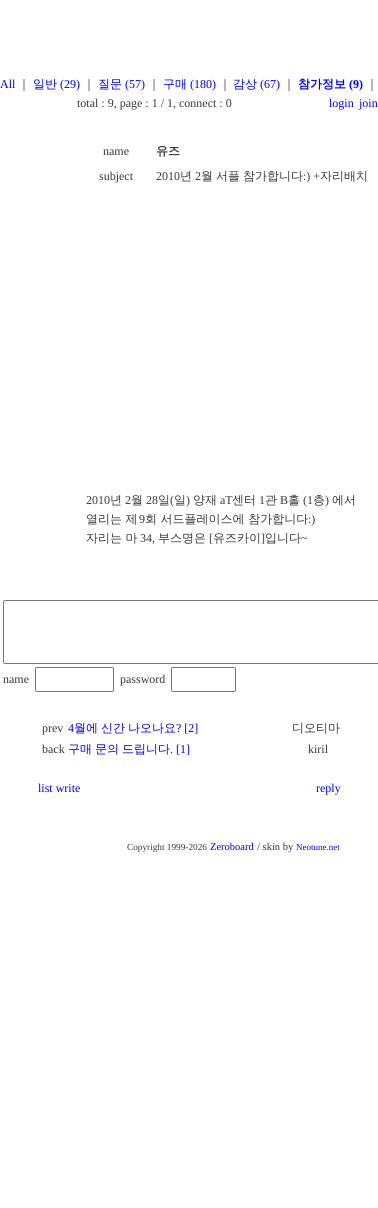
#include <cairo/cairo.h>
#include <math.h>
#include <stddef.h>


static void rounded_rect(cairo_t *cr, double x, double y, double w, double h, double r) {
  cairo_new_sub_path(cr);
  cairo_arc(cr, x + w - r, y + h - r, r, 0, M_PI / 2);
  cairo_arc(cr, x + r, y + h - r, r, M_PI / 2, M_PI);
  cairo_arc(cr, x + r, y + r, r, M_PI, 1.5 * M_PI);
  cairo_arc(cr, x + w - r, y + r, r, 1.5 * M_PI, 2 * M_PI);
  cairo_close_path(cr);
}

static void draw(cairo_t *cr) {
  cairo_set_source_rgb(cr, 1, 1, 1);
  cairo_paint(cr);
  rounded_rect(cr, 3.5, 600.5, 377, 63, 1.5);
  cairo_set_source_rgb(cr, 118 / 255.0, 118 / 255.0, 118 / 255.0);
  cairo_set_line_width(cr, 1);
  cairo_stroke(cr);
  rounded_rect(cr, 35.5, 667.5, 78, 24, 1.5);
  cairo_stroke(cr);
  rounded_rect(cr, 171.5, 667.5, 64, 24, 1.5);
  cairo_stroke(cr);
  cairo_select_font_face(cr, "Liberation Serif", CAIRO_FONT_SLANT_NORMAL, CAIRO_FONT_WEIGHT_NORMAL);
  cairo_set_font_size(cr, 12);
  cairo_set_source_rgb(cr, 0, 0, 238 / 255.0);
  cairo_move_to(cr, 0, 88);
  cairo_show_text(cr, "All");
  cairo_select_font_face(cr, "WenQuanYi Zen Hei Medium", CAIRO_FONT_SLANT_NORMAL, CAIRO_FONT_WEIGHT_NORMAL);
  cairo_set_source_rgb(cr, 56 / 255.0, 56 / 255.0, 56 / 255.0);
  cairo_move_to(cr, 18, 88);
  cairo_show_text(cr, "｜");
  cairo_set_source_rgb(cr, 0, 0, 238 / 255.0);
  cairo_move_to(cr, 33, 88);
  cairo_show_text(cr, "일반");
  cairo_select_font_face(cr, "Liberation Serif", CAIRO_FONT_SLANT_NORMAL, CAIRO_FONT_WEIGHT_NORMAL);
  cairo_move_to(cr, 60, 88);
  cairo_show_text(cr, "(29)");
  cairo_select_font_face(cr, "WenQuanYi Zen Hei Medium", CAIRO_FONT_SLANT_NORMAL, CAIRO_FONT_WEIGHT_NORMAL);
  cairo_set_source_rgb(cr, 56 / 255.0, 56 / 255.0, 56 / 255.0);
  cairo_move_to(cr, 83, 88);
  cairo_show_text(cr, "｜");
  cairo_set_source_rgb(cr, 0, 0, 238 / 255.0);
  cairo_move_to(cr, 98, 88);
  cairo_show_text(cr, "질문");
  cairo_select_font_face(cr, "Liberation Serif", CAIRO_FONT_SLANT_NORMAL, CAIRO_FONT_WEIGHT_NORMAL);
  cairo_move_to(cr, 125, 88);
  cairo_show_text(cr, "(57)");
  cairo_select_font_face(cr, "WenQuanYi Zen Hei Medium", CAIRO_FONT_SLANT_NORMAL, CAIRO_FONT_WEIGHT_NORMAL);
  cairo_set_source_rgb(cr, 56 / 255.0, 56 / 255.0, 56 / 255.0);
  cairo_move_to(cr, 148, 88);
  cairo_show_text(cr, "｜");
  cairo_set_source_rgb(cr, 0, 0, 238 / 255.0);
  cairo_move_to(cr, 163, 88);
  cairo_show_text(cr, "구매");
  cairo_select_font_face(cr, "Liberation Serif", CAIRO_FONT_SLANT_NORMAL, CAIRO_FONT_WEIGHT_NORMAL);
  cairo_move_to(cr, 190, 88);
  cairo_show_text(cr, "(180)");
  cairo_select_font_face(cr, "WenQuanYi Zen Hei Medium", CAIRO_FONT_SLANT_NORMAL, CAIRO_FONT_WEIGHT_NORMAL);
  cairo_set_source_rgb(cr, 56 / 255.0, 56 / 255.0, 56 / 255.0);
  cairo_move_to(cr, 219, 88);
  cairo_show_text(cr, "｜");
  cairo_set_source_rgb(cr, 0, 0, 238 / 255.0);
  cairo_move_to(cr, 233, 88);
  cairo_show_text(cr, "감상");
  cairo_select_font_face(cr, "Liberation Serif", CAIRO_FONT_SLANT_NORMAL, CAIRO_FONT_WEIGHT_NORMAL);
  cairo_move_to(cr, 260, 88);
  cairo_show_text(cr, "(67)");
  cairo_select_font_face(cr, "WenQuanYi Zen Hei Medium", CAIRO_FONT_SLANT_NORMAL, CAIRO_FONT_WEIGHT_NORMAL);
  cairo_set_source_rgb(cr, 56 / 255.0, 56 / 255.0, 56 / 255.0);
  cairo_move_to(cr, 283, 88);
  cairo_show_text(cr, "｜");
  cairo_select_font_face(cr, "WenQuanYi Zen Hei", CAIRO_FONT_SLANT_NORMAL, CAIRO_FONT_WEIGHT_BOLD);
  cairo_set_source_rgb(cr, 0, 0, 238 / 255.0);
  cairo_move_to(cr, 298, 88);
  cairo_show_text(cr, "참가정보");
  cairo_select_font_face(cr, "Liberation Serif", CAIRO_FONT_SLANT_NORMAL, CAIRO_FONT_WEIGHT_BOLD);
  cairo_move_to(cr, 349, 88);
  cairo_show_text(cr, "(9)");
  cairo_select_font_face(cr, "WenQuanYi Zen Hei Medium", CAIRO_FONT_SLANT_NORMAL, CAIRO_FONT_WEIGHT_NORMAL);
  cairo_set_source_rgb(cr, 56 / 255.0, 56 / 255.0, 56 / 255.0);
  cairo_move_to(cr, 366, 88);
  cairo_show_text(cr, "｜");
  cairo_select_font_face(cr, "Liberation Serif", CAIRO_FONT_SLANT_NORMAL, CAIRO_FONT_WEIGHT_NORMAL);
  cairo_move_to(cr, 77, 107);
  cairo_show_text(cr, "total : 9, page : 1 / 1, connect : 0");
  cairo_set_source_rgb(cr, 0, 0, 238 / 255.0);
  cairo_move_to(cr, 329, 107);
  cairo_show_text(cr, "login");
  cairo_move_to(cr, 359, 107);
  cairo_show_text(cr, "join");
  cairo_set_source_rgb(cr, 56 / 255.0, 56 / 255.0, 56 / 255.0);
  cairo_move_to(cr, 103, 155);
  cairo_show_text(cr, "name");
  cairo_select_font_face(cr, "WenQuanYi Zen Hei", CAIRO_FONT_SLANT_NORMAL, CAIRO_FONT_WEIGHT_BOLD);
  cairo_move_to(cr, 156, 155);
  cairo_show_text(cr, "유즈");
  cairo_select_font_face(cr, "Liberation Serif", CAIRO_FONT_SLANT_NORMAL, CAIRO_FONT_WEIGHT_NORMAL);
  cairo_move_to(cr, 99, 180);
  cairo_show_text(cr, "subject");
  cairo_move_to(cr, 156, 180);
  cairo_show_text(cr, "2010");
  cairo_select_font_face(cr, "WenQuanYi Zen Hei Medium", CAIRO_FONT_SLANT_NORMAL, CAIRO_FONT_WEIGHT_NORMAL);
  cairo_move_to(cr, 180, 180);
  cairo_show_text(cr, "년");
  cairo_select_font_face(cr, "Liberation Serif", CAIRO_FONT_SLANT_NORMAL, CAIRO_FONT_WEIGHT_NORMAL);
  cairo_move_to(cr, 195, 180);
  cairo_show_text(cr, "2");
  cairo_select_font_face(cr, "WenQuanYi Zen Hei Medium", CAIRO_FONT_SLANT_NORMAL, CAIRO_FONT_WEIGHT_NORMAL);
  cairo_move_to(cr, 201, 180);
  cairo_show_text(cr, "월");
  cairo_move_to(cr, 216, 180);
  cairo_show_text(cr, "서플");
  cairo_move_to(cr, 243, 180);
  cairo_show_text(cr, "참가합니다");
  cairo_select_font_face(cr, "Liberation Serif", CAIRO_FONT_SLANT_NORMAL, CAIRO_FONT_WEIGHT_NORMAL);
  cairo_move_to(cr, 303, 180);
  cairo_show_text(cr, ":) +");
  cairo_select_font_face(cr, "WenQuanYi Zen Hei Medium", CAIRO_FONT_SLANT_NORMAL, CAIRO_FONT_WEIGHT_NORMAL);
  cairo_move_to(cr, 320, 180);
  cairo_show_text(cr, "자리배치");
  cairo_select_font_face(cr, "Liberation Serif", CAIRO_FONT_SLANT_NORMAL, CAIRO_FONT_WEIGHT_NORMAL);
  cairo_move_to(cr, 86, 504);
  cairo_show_text(cr, "2010");
  cairo_select_font_face(cr, "WenQuanYi Zen Hei Medium", CAIRO_FONT_SLANT_NORMAL, CAIRO_FONT_WEIGHT_NORMAL);
  cairo_move_to(cr, 110, 504);
  cairo_show_text(cr, "년");
  cairo_select_font_face(cr, "Liberation Serif", CAIRO_FONT_SLANT_NORMAL, CAIRO_FONT_WEIGHT_NORMAL);
  cairo_move_to(cr, 125, 504);
  cairo_show_text(cr, "2");
  cairo_select_font_face(cr, "WenQuanYi Zen Hei Medium", CAIRO_FONT_SLANT_NORMAL, CAIRO_FONT_WEIGHT_NORMAL);
  cairo_move_to(cr, 131, 504);
  cairo_show_text(cr, "월");
  cairo_select_font_face(cr, "Liberation Serif", CAIRO_FONT_SLANT_NORMAL, CAIRO_FONT_WEIGHT_NORMAL);
  cairo_move_to(cr, 146, 504);
  cairo_show_text(cr, "28");
  cairo_select_font_face(cr, "WenQuanYi Zen Hei Medium", CAIRO_FONT_SLANT_NORMAL, CAIRO_FONT_WEIGHT_NORMAL);
  cairo_move_to(cr, 158, 504);
  cairo_show_text(cr, "일");
  cairo_select_font_face(cr, "Liberation Serif", CAIRO_FONT_SLANT_NORMAL, CAIRO_FONT_WEIGHT_NORMAL);
  cairo_move_to(cr, 170, 504);
  cairo_show_text(cr, "(");
  cairo_select_font_face(cr, "WenQuanYi Zen Hei Medium", CAIRO_FONT_SLANT_NORMAL, CAIRO_FONT_WEIGHT_NORMAL);
  cairo_move_to(cr, 174, 504);
  cairo_show_text(cr, "일");
  cairo_select_font_face(cr, "Liberation Serif", CAIRO_FONT_SLANT_NORMAL, CAIRO_FONT_WEIGHT_NORMAL);
  cairo_move_to(cr, 186, 504);
  cairo_show_text(cr, ")");
  cairo_select_font_face(cr, "WenQuanYi Zen Hei Medium", CAIRO_FONT_SLANT_NORMAL, CAIRO_FONT_WEIGHT_NORMAL);
  cairo_move_to(cr, 193, 504);
  cairo_show_text(cr, "양재");
  cairo_select_font_face(cr, "Liberation Serif", CAIRO_FONT_SLANT_NORMAL, CAIRO_FONT_WEIGHT_NORMAL);
  cairo_move_to(cr, 220, 504);
  cairo_show_text(cr, "aT");
  cairo_select_font_face(cr, "WenQuanYi Zen Hei Medium", CAIRO_FONT_SLANT_NORMAL, CAIRO_FONT_WEIGHT_NORMAL);
  cairo_move_to(cr, 232, 504);
  cairo_show_text(cr, "센터");
  cairo_select_font_face(cr, "Liberation Serif", CAIRO_FONT_SLANT_NORMAL, CAIRO_FONT_WEIGHT_NORMAL);
  cairo_move_to(cr, 259, 504);
  cairo_show_text(cr, "1");
  cairo_select_font_face(cr, "WenQuanYi Zen Hei Medium", CAIRO_FONT_SLANT_NORMAL, CAIRO_FONT_WEIGHT_NORMAL);
  cairo_move_to(cr, 265, 504);
  cairo_show_text(cr, "관");
  cairo_select_font_face(cr, "Liberation Serif", CAIRO_FONT_SLANT_NORMAL, CAIRO_FONT_WEIGHT_NORMAL);
  cairo_move_to(cr, 280, 504);
  cairo_show_text(cr, "B");
  cairo_select_font_face(cr, "WenQuanYi Zen Hei Medium", CAIRO_FONT_SLANT_NORMAL, CAIRO_FONT_WEIGHT_NORMAL);
  cairo_move_to(cr, 288, 504);
  cairo_show_text(cr, "홀");
  cairo_select_font_face(cr, "Liberation Serif", CAIRO_FONT_SLANT_NORMAL, CAIRO_FONT_WEIGHT_NORMAL);
  cairo_move_to(cr, 303, 504);
  cairo_show_text(cr, "(1");
  cairo_select_font_face(cr, "WenQuanYi Zen Hei Medium", CAIRO_FONT_SLANT_NORMAL, CAIRO_FONT_WEIGHT_NORMAL);
  cairo_move_to(cr, 313, 504);
  cairo_show_text(cr, "층");
  cairo_select_font_face(cr, "Liberation Serif", CAIRO_FONT_SLANT_NORMAL, CAIRO_FONT_WEIGHT_NORMAL);
  cairo_move_to(cr, 325, 504);
  cairo_show_text(cr, ")");
  cairo_select_font_face(cr, "WenQuanYi Zen Hei Medium", CAIRO_FONT_SLANT_NORMAL, CAIRO_FONT_WEIGHT_NORMAL);
  cairo_move_to(cr, 332, 504);
  cairo_show_text(cr, "에서");
  cairo_move_to(cr, 86, 523);
  cairo_show_text(cr, "열리는 제");
  cairo_select_font_face(cr, "Liberation Serif", CAIRO_FONT_SLANT_NORMAL, CAIRO_FONT_WEIGHT_NORMAL);
  cairo_move_to(cr, 139, 523);
  cairo_show_text(cr, "9");
  cairo_select_font_face(cr, "WenQuanYi Zen Hei Medium", CAIRO_FONT_SLANT_NORMAL, CAIRO_FONT_WEIGHT_NORMAL);
  cairo_move_to(cr, 145, 523);
  cairo_show_text(cr, "회 서드플레이스에 참가합니다");
  cairo_select_font_face(cr, "Liberation Serif", CAIRO_FONT_SLANT_NORMAL, CAIRO_FONT_WEIGHT_NORMAL);
  cairo_move_to(cr, 308, 523);
  cairo_show_text(cr, ":)");
  cairo_select_font_face(cr, "WenQuanYi Zen Hei Medium", CAIRO_FONT_SLANT_NORMAL, CAIRO_FONT_WEIGHT_NORMAL);
  cairo_move_to(cr, 86, 542);
  cairo_show_text(cr, "자리는 마");
  cairo_select_font_face(cr, "Liberation Serif", CAIRO_FONT_SLANT_NORMAL, CAIRO_FONT_WEIGHT_NORMAL);
  cairo_move_to(cr, 140, 542);
  cairo_show_text(cr, "34,");
  cairo_select_font_face(cr, "WenQuanYi Zen Hei Medium", CAIRO_FONT_SLANT_NORMAL, CAIRO_FONT_WEIGHT_NORMAL);
  cairo_move_to(cr, 158, 542);
  cairo_show_text(cr, "부스명은");
  cairo_select_font_face(cr, "Liberation Serif", CAIRO_FONT_SLANT_NORMAL, CAIRO_FONT_WEIGHT_NORMAL);
  cairo_move_to(cr, 209, 542);
  cairo_show_text(cr, "[");
  cairo_select_font_face(cr, "WenQuanYi Zen Hei Medium", CAIRO_FONT_SLANT_NORMAL, CAIRO_FONT_WEIGHT_NORMAL);
  cairo_move_to(cr, 213, 542);
  cairo_show_text(cr, "유즈카이");
  cairo_select_font_face(cr, "Liberation Serif", CAIRO_FONT_SLANT_NORMAL, CAIRO_FONT_WEIGHT_NORMAL);
  cairo_move_to(cr, 261, 542);
  cairo_show_text(cr, "]");
  cairo_select_font_face(cr, "WenQuanYi Zen Hei Medium", CAIRO_FONT_SLANT_NORMAL, CAIRO_FONT_WEIGHT_NORMAL);
  cairo_move_to(cr, 265, 542);
  cairo_show_text(cr, "입니다");
  cairo_select_font_face(cr, "Liberation Serif", CAIRO_FONT_SLANT_NORMAL, CAIRO_FONT_WEIGHT_NORMAL);
  cairo_move_to(cr, 301, 542);
  cairo_show_text(cr, "~");
  cairo_move_to(cr, 3, 683);
  cairo_show_text(cr, "name");
  cairo_move_to(cr, 120, 683);
  cairo_show_text(cr, "password");
  cairo_move_to(cr, 42, 732);
  cairo_show_text(cr, "prev");
  cairo_set_source_rgb(cr, 0, 0, 238 / 255.0);
  cairo_move_to(cr, 68, 732);
  cairo_show_text(cr, "4");
  cairo_select_font_face(cr, "WenQuanYi Zen Hei Medium", CAIRO_FONT_SLANT_NORMAL, CAIRO_FONT_WEIGHT_NORMAL);
  cairo_move_to(cr, 74, 732);
  cairo_show_text(cr, "월에");
  cairo_move_to(cr, 101, 732);
  cairo_show_text(cr, "신간");
  cairo_move_to(cr, 128, 732);
  cairo_show_text(cr, "나오나요");
  cairo_select_font_face(cr, "Liberation Serif", CAIRO_FONT_SLANT_NORMAL, CAIRO_FONT_WEIGHT_NORMAL);
  cairo_move_to(cr, 176, 732);
  cairo_show_text(cr, "? [2]");
  cairo_select_font_face(cr, "WenQuanYi Zen Hei Medium", CAIRO_FONT_SLANT_NORMAL, CAIRO_FONT_WEIGHT_NORMAL);
  cairo_set_source_rgb(cr, 56 / 255.0, 56 / 255.0, 56 / 255.0);
  cairo_move_to(cr, 292, 732);
  cairo_show_text(cr, "디오티마");
  cairo_select_font_face(cr, "Liberation Serif", CAIRO_FONT_SLANT_NORMAL, CAIRO_FONT_WEIGHT_NORMAL);
  cairo_move_to(cr, 42, 753);
  cairo_show_text(cr, "back");
  cairo_select_font_face(cr, "WenQuanYi Zen Hei Medium", CAIRO_FONT_SLANT_NORMAL, CAIRO_FONT_WEIGHT_NORMAL);
  cairo_set_source_rgb(cr, 0, 0, 238 / 255.0);
  cairo_move_to(cr, 68, 753);
  cairo_show_text(cr, "구매");
  cairo_move_to(cr, 95, 753);
  cairo_show_text(cr, "문의");
  cairo_move_to(cr, 122, 753);
  cairo_show_text(cr, "드립니다");
  cairo_select_font_face(cr, "Liberation Serif", CAIRO_FONT_SLANT_NORMAL, CAIRO_FONT_WEIGHT_NORMAL);
  cairo_move_to(cr, 170, 753);
  cairo_show_text(cr, ". [1]");
  cairo_set_source_rgb(cr, 56 / 255.0, 56 / 255.0, 56 / 255.0);
  cairo_move_to(cr, 308, 753);
  cairo_show_text(cr, "kiril");
  cairo_set_source_rgb(cr, 0, 0, 238 / 255.0);
  cairo_move_to(cr, 38, 792);
  cairo_show_text(cr, "list write");
  cairo_move_to(cr, 316, 792);
  cairo_show_text(cr, "reply");
  cairo_set_font_size(cr, 9.25);
  cairo_set_source_rgb(cr, 56 / 255.0, 56 / 255.0, 56 / 255.0);
  cairo_move_to(cr, 127, 850);
  cairo_show_text(cr, "Copyright 1999-2026");
  cairo_set_font_size(cr, 10.5);
  cairo_set_source_rgb(cr, 0, 0, 238 / 255.0);
  cairo_move_to(cr, 210, 850);
  cairo_show_text(cr, "Zeroboard");
  cairo_set_source_rgb(cr, 56 / 255.0, 56 / 255.0, 56 / 255.0);
  cairo_move_to(cr, 257, 850);
  cairo_show_text(cr, "/ skin by");
  cairo_set_font_size(cr, 9);
  cairo_set_source_rgb(cr, 0, 0, 238 / 255.0);
  cairo_move_to(cr, 296, 850);
  cairo_show_text(cr, "Neotune.net");
}

int main(void) {
  cairo_surface_t *surface = cairo_image_surface_create(CAIRO_FORMAT_RGB24, 378, 1208);
  cairo_t *cr = cairo_create(surface);
  cairo_font_options_t *options = cairo_font_options_create();
  cairo_font_options_set_hint_metrics(options, CAIRO_HINT_METRICS_OFF);
  cairo_font_options_set_hint_style(options, CAIRO_HINT_STYLE_NONE);
  cairo_set_font_options(cr, options);
  cairo_set_miter_limit(cr, 4);
  draw(cr);
  cairo_surface_write_to_png(surface, "out.png");
  cairo_font_options_destroy(options);
  cairo_destroy(cr);
  cairo_surface_destroy(surface);
  return 0;
}
